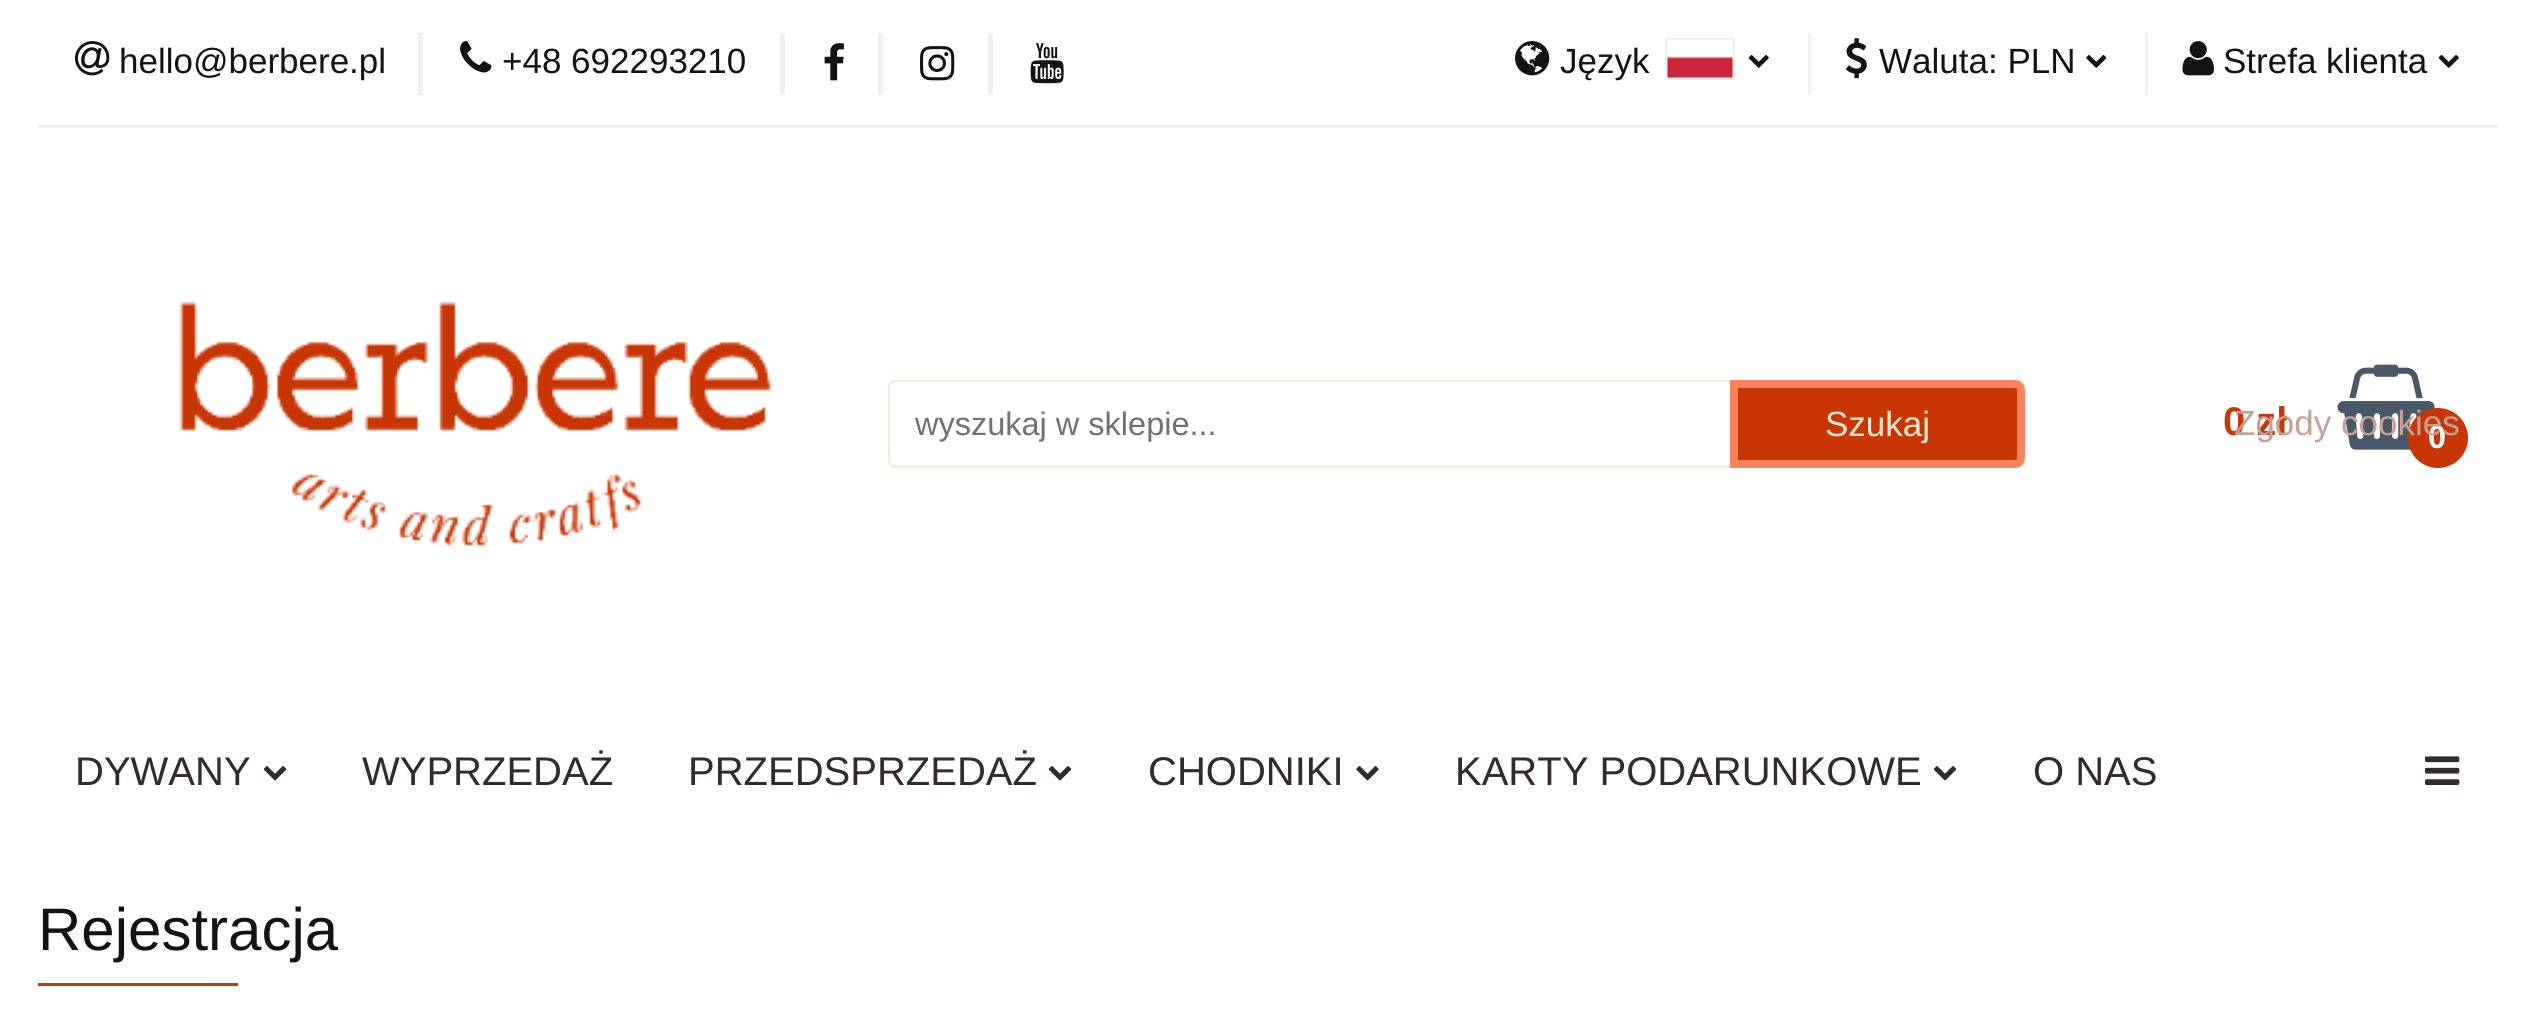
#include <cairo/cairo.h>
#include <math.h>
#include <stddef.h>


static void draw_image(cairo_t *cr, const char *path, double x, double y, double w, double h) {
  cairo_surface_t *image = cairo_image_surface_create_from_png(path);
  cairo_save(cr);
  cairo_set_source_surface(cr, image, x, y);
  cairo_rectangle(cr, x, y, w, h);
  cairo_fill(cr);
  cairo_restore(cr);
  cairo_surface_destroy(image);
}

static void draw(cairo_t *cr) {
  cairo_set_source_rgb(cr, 1, 1, 1);
  cairo_paint(cr);
  cairo_set_source_rgb(cr, 239 / 255.0, 239 / 255.0, 239 / 255.0);
  cairo_rectangle(cr, 38, 125, 2460, 3);
  cairo_fill(cr);
  draw_image(cr, "images/1.png", 75, 41, 35, 35);
  cairo_rectangle(cr, 418, 33, 5, 62);
  cairo_fill(cr);
  draw_image(cr, "images/2.png", 460, 41, 32, 32);
  cairo_rectangle(cr, 780, 33, 5, 62);
  cairo_fill(cr);
  draw_image(cr, "images/3.png", 824, 43, 20, 38);
  cairo_rectangle(cr, 878, 33, 5, 62);
  cairo_fill(cr);
  draw_image(cr, "images/4.png", 920, 46, 35, 35);
  cairo_rectangle(cr, 988, 33, 5, 62);
  cairo_fill(cr);
  draw_image(cr, "images/5.png", 1030, 43, 34, 41);
  cairo_rectangle(cr, 1666.5, 39.5, 67, 39);
  cairo_set_line_width(cr, 3);
  cairo_stroke(cr);
  draw_image(cr, "images/6.png", 1515, 41, 35, 35);
  draw_image(cr, "images/7.png", 1667, 40, 66, 38);
  draw_image(cr, "images/8.png", 1748, 55, 21, 13);
  cairo_rectangle(cr, 1808, 33, 3, 62);
  cairo_fill(cr);
  draw_image(cr, "images/9.png", 1846, 38, 21, 41);
  draw_image(cr, "images/10.png", 2086, 55, 21, 13);
  cairo_rectangle(cr, 2145, 33, 3, 62);
  cairo_fill(cr);
  draw_image(cr, "images/11.png", 2182, 41, 32, 35);
  draw_image(cr, "images/8.png", 2438, 55, 21, 13);
  draw_image(cr, "images/12.png", 179, 301, 592, 245);
  cairo_set_source_rgb(cr, 252 / 255.0, 233 / 255.0, 212 / 255.0);
  cairo_set_fill_rule(cr, CAIRO_FILL_RULE_EVEN_ODD);
  cairo_new_path(cr);
  cairo_move_to(cr, 895, 380);
  cairo_line_to(cr, 1730, 380);
  cairo_line_to(cr, 1730, 468);
  cairo_line_to(cr, 895, 468);
  cairo_curve_to(cr, 891, 468, 888, 464, 888, 460);
  cairo_line_to(cr, 888, 388);
  cairo_curve_to(cr, 888, 383, 891, 380, 895, 380);
  cairo_close_path(cr);
  cairo_move_to(cr, 895, 382);
  cairo_line_to(cr, 1730, 382);
  cairo_line_to(cr, 1730, 465);
  cairo_line_to(cr, 895, 465);
  cairo_curve_to(cr, 892, 465, 890, 463, 890, 460);
  cairo_line_to(cr, 890, 388);
  cairo_curve_to(cr, 890, 385, 892, 382, 895, 382);
  cairo_close_path(cr);
  cairo_fill(cr);
  cairo_set_source_rgb(cr, 200 / 255.0, 54 / 255.0, 5 / 255.0);
  cairo_new_path(cr);
  cairo_move_to(cr, 1734, 384);
  cairo_line_to(cr, 2015, 384);
  cairo_curve_to(cr, 2018.5, 384, 2021, 386.5, 2021, 390);
  cairo_line_to(cr, 2021, 458);
  cairo_curve_to(cr, 2021, 461.5, 2018.5, 464, 2015, 464);
  cairo_line_to(cr, 1734, 464);
  cairo_close_path(cr);
  cairo_fill_preserve(cr);
  cairo_set_source_rgb(cr, 249 / 255.0, 131 / 255.0, 94 / 255.0);
  cairo_set_line_width(cr, 8);
  cairo_stroke(cr);
  draw_image(cr, "images/13.png", 2337, 364, 98, 86);
  cairo_set_source_rgb(cr, 200 / 255.0, 54 / 255.0, 5 / 255.0);
  cairo_arc(cr, 2438, 438, 30, 0, 2 * M_PI);
  cairo_fill(cr);
  draw_image(cr, "images/14.png", 263, 766, 24, 15);
  draw_image(cr, "images/14.png", 1048, 766, 24, 15);
  draw_image(cr, "images/15.png", 1356, 766, 23, 15);
  draw_image(cr, "images/14.png", 1933, 766, 24, 15);
  draw_image(cr, "images/16.png", 2425, 756, 35, 29);
  cairo_rectangle(cr, 38, 983, 200, 3);
  cairo_fill(cr);
  cairo_select_font_face(cr, "Liberation Sans", CAIRO_FONT_SLANT_NORMAL, CAIRO_FONT_WEIGHT_NORMAL);
  cairo_set_font_size(cr, 35);
  cairo_set_source_rgb(cr, 19 / 255.0, 19 / 255.0, 19 / 255.0);
  cairo_move_to(cr, 119, 73);
  cairo_show_text(cr, "hello@berbere.pl");
  cairo_move_to(cr, 502, 73);
  cairo_show_text(cr, "+48 692293210");
  cairo_move_to(cr, 1560, 73);
  cairo_show_text(cr, "Język");
  cairo_move_to(cr, 1879, 73);
  cairo_show_text(cr, "Waluta: PLN");
  cairo_move_to(cr, 2223, 73);
  cairo_show_text(cr, "Strefa klienta");
  cairo_set_font_size(cr, 32.5);
  cairo_set_source_rgb(cr, 113 / 255.0, 113 / 255.0, 113 / 255.0);
  cairo_move_to(cr, 915, 435);
  cairo_show_text(cr, "wyszukaj w sklepie...");
  cairo_set_font_size(cr, 35);
  cairo_set_source_rgb(cr, 252 / 255.0, 233 / 255.0, 212 / 255.0);
  cairo_move_to(cr, 1825, 436);
  cairo_show_text(cr, "Szukaj");
  cairo_select_font_face(cr, "Liberation Sans", CAIRO_FONT_SLANT_NORMAL, CAIRO_FONT_WEIGHT_BOLD);
  cairo_set_font_size(cr, 40);
  cairo_set_source_rgb(cr, 200 / 255.0, 54 / 255.0, 5 / 255.0);
  cairo_move_to(cr, 2223, 435);
  cairo_show_text(cr, "0 zł");
  cairo_set_font_size(cr, 32.5);
  cairo_set_source_rgb(cr, 1, 1, 1);
  cairo_move_to(cr, 2428, 448);
  cairo_show_text(cr, "0");
  cairo_select_font_face(cr, "Liberation Sans", CAIRO_FONT_SLANT_NORMAL, CAIRO_FONT_WEIGHT_NORMAL);
  cairo_set_font_size(cr, 35);
  cairo_set_source_rgb(cr, 199 / 255.0, 159 / 255.0, 148 / 255.0);
  cairo_move_to(cr, 2234, 435);
  cairo_show_text(cr, "Zgody cookies");
  cairo_set_font_size(cr, 40);
  cairo_set_source_rgb(cr, 49 / 255.0, 43 / 255.0, 43 / 255.0);
  cairo_move_to(cr, 75, 785);
  cairo_show_text(cr, "DYWANY");
  cairo_move_to(cr, 362, 785);
  cairo_show_text(cr, "WYPRZEDAŻ");
  cairo_move_to(cr, 688, 785);
  cairo_show_text(cr, "PRZEDSPRZEDAŻ");
  cairo_move_to(cr, 1148, 785);
  cairo_show_text(cr, "CHODNIKI");
  cairo_move_to(cr, 1455, 785);
  cairo_show_text(cr, "KARTY PODARUNKOWE");
  cairo_move_to(cr, 2033, 785);
  cairo_show_text(cr, "O NAS");
  cairo_set_font_size(cr, 60);
  cairo_set_source_rgb(cr, 19 / 255.0, 19 / 255.0, 19 / 255.0);
  cairo_move_to(cr, 38, 950);
  cairo_show_text(cr, "Rejestracja");
}

int main(void) {
  cairo_surface_t *surface = cairo_image_surface_create(CAIRO_FORMAT_RGB24, 2533, 1033);
  cairo_t *cr = cairo_create(surface);
  cairo_font_options_t *options = cairo_font_options_create();
  cairo_font_options_set_hint_metrics(options, CAIRO_HINT_METRICS_OFF);
  cairo_font_options_set_hint_style(options, CAIRO_HINT_STYLE_NONE);
  cairo_set_font_options(cr, options);
  cairo_set_miter_limit(cr, 4);
  draw(cr);
  cairo_surface_write_to_png(surface, "out.png");
  cairo_font_options_destroy(options);
  cairo_destroy(cr);
  cairo_surface_destroy(surface);
  return 0;
}
